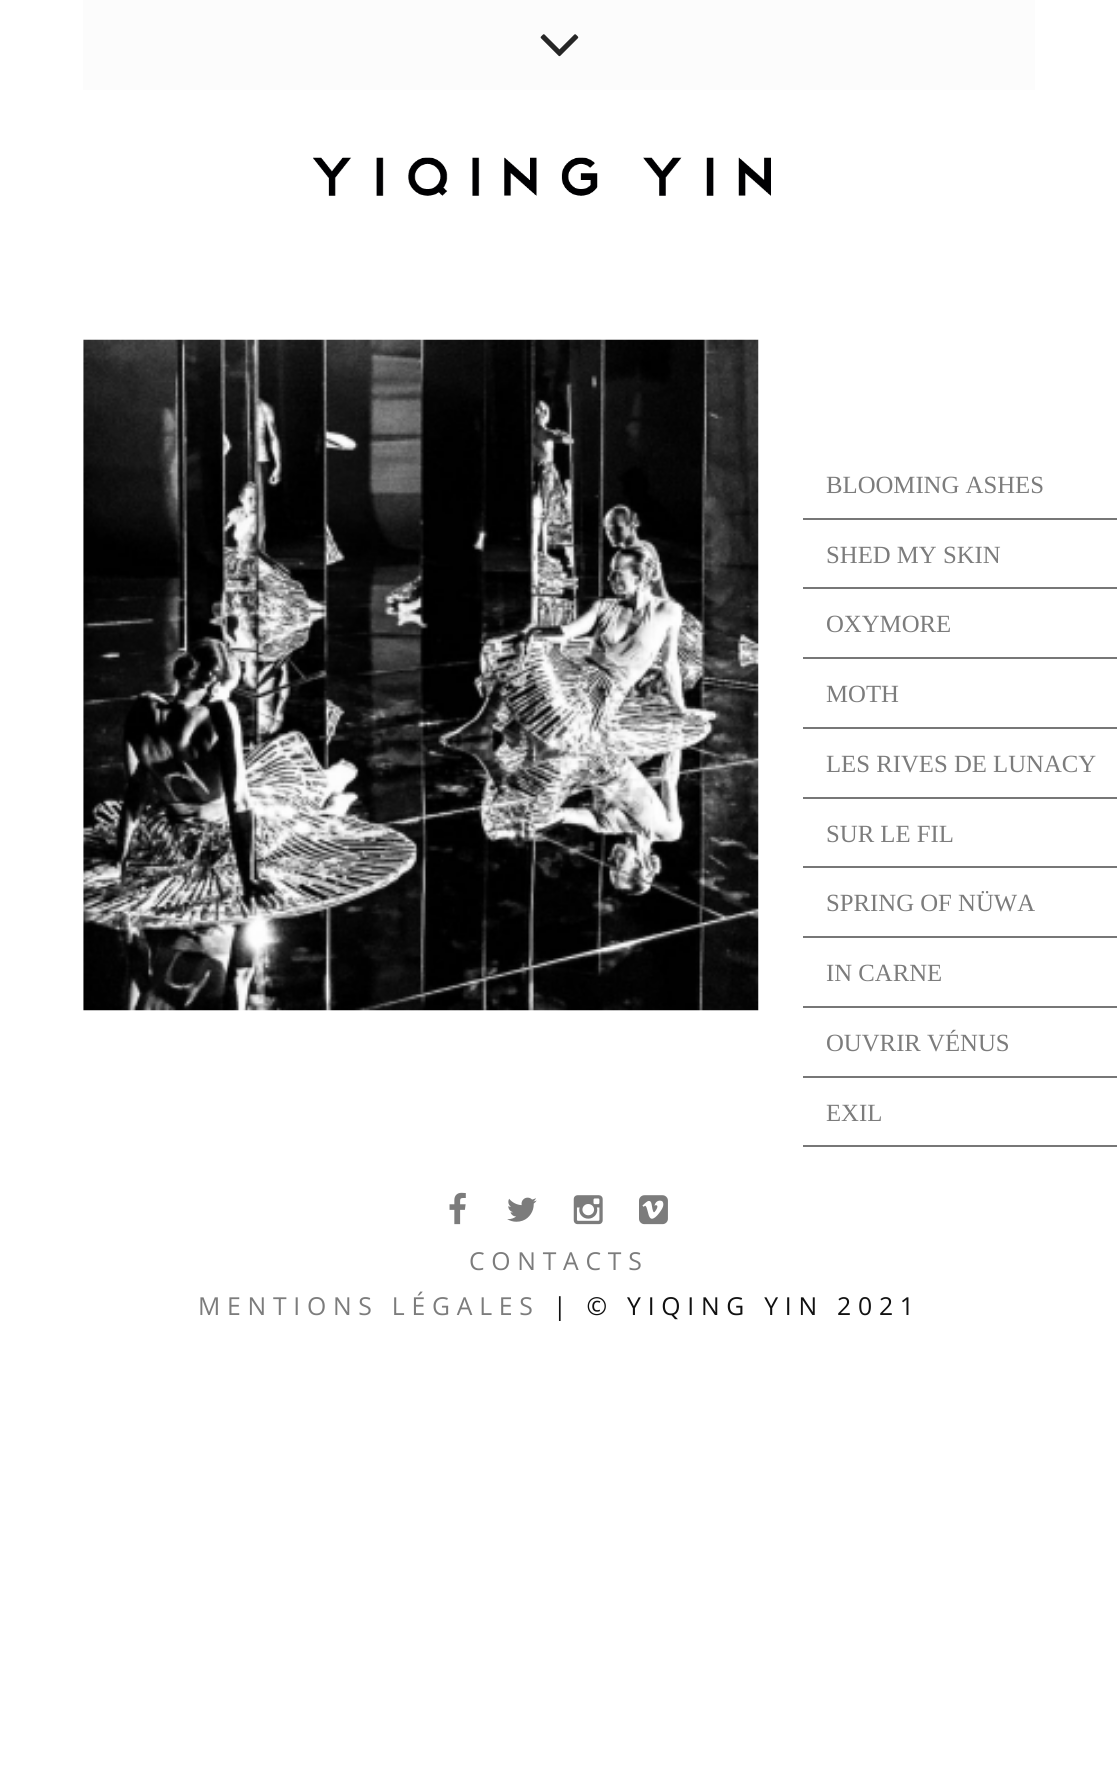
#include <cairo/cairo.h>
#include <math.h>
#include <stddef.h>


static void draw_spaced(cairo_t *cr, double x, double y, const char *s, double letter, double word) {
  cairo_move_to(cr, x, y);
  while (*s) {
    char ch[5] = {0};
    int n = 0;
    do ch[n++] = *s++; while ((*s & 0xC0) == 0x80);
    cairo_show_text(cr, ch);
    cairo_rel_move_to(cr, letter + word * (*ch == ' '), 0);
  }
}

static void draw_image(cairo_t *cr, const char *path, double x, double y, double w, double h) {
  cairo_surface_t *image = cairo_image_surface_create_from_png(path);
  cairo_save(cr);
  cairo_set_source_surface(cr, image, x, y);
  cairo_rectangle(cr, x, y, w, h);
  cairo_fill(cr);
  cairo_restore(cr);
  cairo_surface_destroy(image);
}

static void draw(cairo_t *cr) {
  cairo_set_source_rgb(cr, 1, 1, 1);
  cairo_paint(cr);
  cairo_set_source_rgb(cr, 119 / 255.0, 119 / 255.0, 119 / 255.0);
  cairo_rectangle(cr, 803, 518, 314, 2);
  cairo_fill(cr);
  cairo_rectangle(cr, 803, 587, 314, 2);
  cairo_fill(cr);
  cairo_rectangle(cr, 803, 657, 314, 2);
  cairo_fill(cr);
  cairo_rectangle(cr, 803, 727, 314, 2);
  cairo_fill(cr);
  cairo_rectangle(cr, 803, 797, 314, 2);
  cairo_fill(cr);
  cairo_rectangle(cr, 803, 866, 314, 2);
  cairo_fill(cr);
  cairo_rectangle(cr, 803, 936, 314, 2);
  cairo_fill(cr);
  cairo_rectangle(cr, 803, 1006, 314, 2);
  cairo_fill(cr);
  cairo_rectangle(cr, 803, 1076, 314, 2);
  cairo_fill(cr);
  cairo_rectangle(cr, 803, 1145, 314, 2);
  cairo_fill(cr);
  cairo_set_source_rgb(cr, 252 / 255.0, 252 / 255.0, 252 / 255.0);
  cairo_rectangle(cr, 83, 0, 952, 90);
  cairo_fill(cr);
  draw_image(cr, "images/1.png", 540, 34, 39, 23);
  draw_image(cr, "images/2.png", 313, 157, 458, 39);
  draw_image(cr, "images/3.png", 83, 339, 676, 672);
  draw_image(cr, "images/4.png", 449, 1192, 17, 33);
  draw_image(cr, "images/5.png", 507, 1197, 30, 25);
  draw_image(cr, "images/6.png", 573, 1195, 30, 30);
  draw_image(cr, "images/7.png", 639, 1195, 29, 30);
  cairo_select_font_face(cr, "Liberation Serif", CAIRO_FONT_SLANT_NORMAL, CAIRO_FONT_WEIGHT_NORMAL);
  cairo_set_font_size(cr, 24.75);
  cairo_set_source_rgb(cr, 124 / 255.0, 124 / 255.0, 124 / 255.0);
  cairo_move_to(cr, 826, 493);
  cairo_show_text(cr, "BLOOMING ASHES");
  cairo_move_to(cr, 826, 563);
  cairo_show_text(cr, "SHED MY SKIN");
  cairo_move_to(cr, 826, 632);
  cairo_show_text(cr, "OXYMORE");
  cairo_move_to(cr, 826, 702);
  cairo_show_text(cr, "MOTH");
  cairo_move_to(cr, 826, 772);
  cairo_show_text(cr, "LES RIVES DE LUNACY");
  cairo_move_to(cr, 826, 842);
  cairo_show_text(cr, "SUR LE FIL");
  cairo_move_to(cr, 826, 911);
  cairo_show_text(cr, "SPRING OF NÜWA");
  cairo_move_to(cr, 826, 981);
  cairo_show_text(cr, "IN CARNE");
  cairo_move_to(cr, 826, 1051);
  cairo_show_text(cr, "OUVRIR VÉNUS");
  cairo_move_to(cr, 826, 1121);
  cairo_show_text(cr, "EXIL");
  cairo_select_font_face(cr, "Open Sans", CAIRO_FONT_SLANT_NORMAL, CAIRO_FONT_WEIGHT_NORMAL);
  draw_spaced(cr, 469, 1270, "CONTACTS", 6.75, 0);
  draw_spaced(cr, 198, 1315, "MENTIONS LÉGALES", 6.75, 0);
  cairo_set_source_rgb(cr, 17 / 255.0, 17 / 255.0, 17 / 255.0);
  draw_spaced(cr, 553, 1315, "| © YIQING YIN 2021", 6.75, 0);
}

int main(void) {
  cairo_surface_t *surface = cairo_image_surface_create(CAIRO_FORMAT_RGB24, 1117, 1782);
  cairo_t *cr = cairo_create(surface);
  cairo_font_options_t *options = cairo_font_options_create();
  cairo_font_options_set_hint_metrics(options, CAIRO_HINT_METRICS_OFF);
  cairo_font_options_set_hint_style(options, CAIRO_HINT_STYLE_NONE);
  cairo_set_font_options(cr, options);
  cairo_set_miter_limit(cr, 4);
  draw(cr);
  cairo_surface_write_to_png(surface, "out.png");
  cairo_font_options_destroy(options);
  cairo_destroy(cr);
  cairo_surface_destroy(surface);
  return 0;
}
